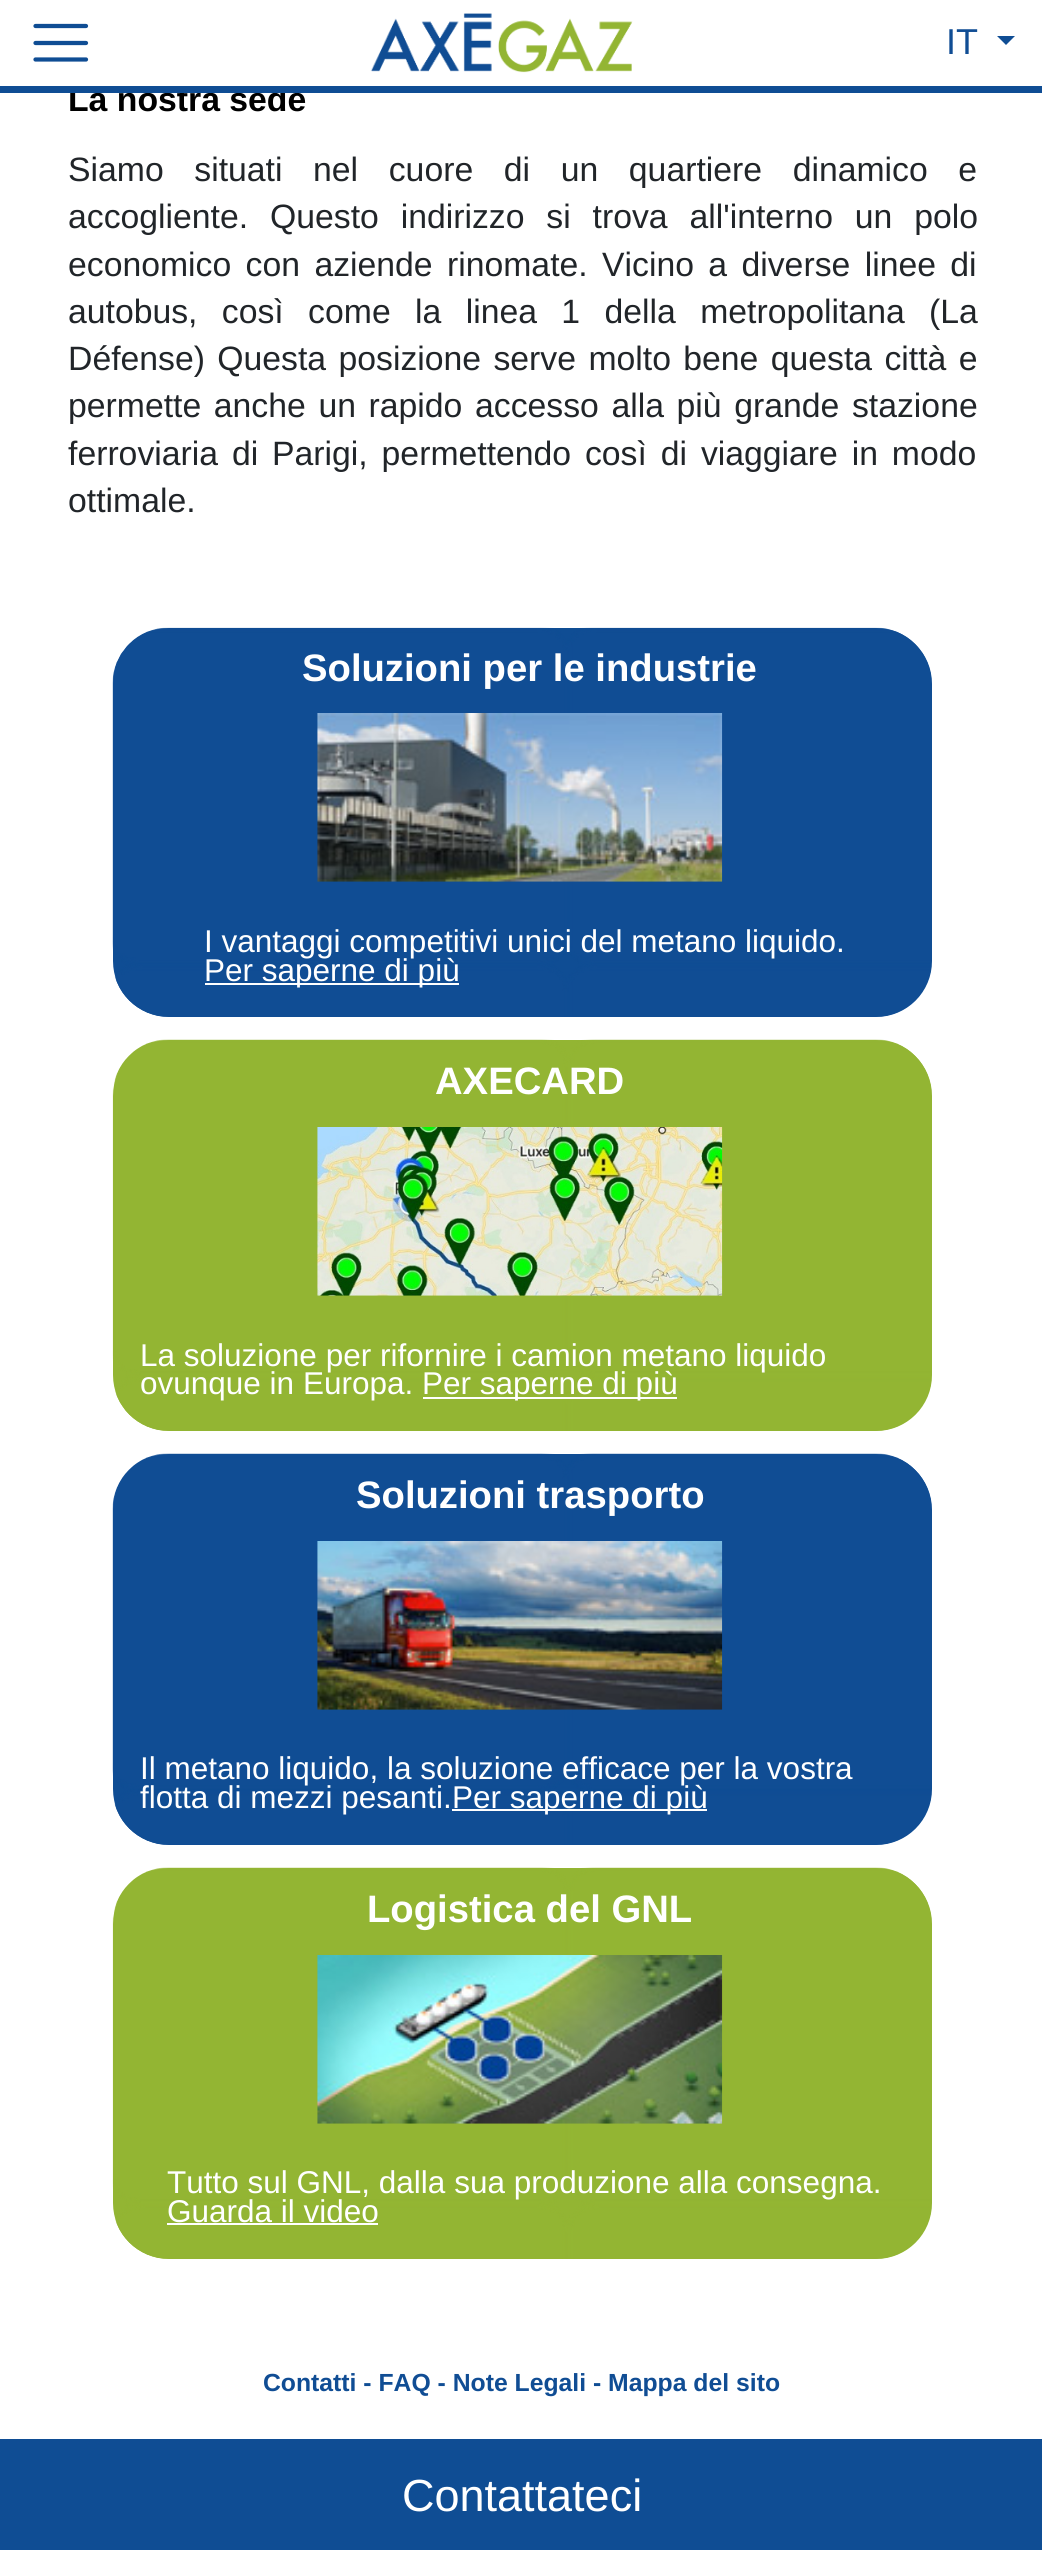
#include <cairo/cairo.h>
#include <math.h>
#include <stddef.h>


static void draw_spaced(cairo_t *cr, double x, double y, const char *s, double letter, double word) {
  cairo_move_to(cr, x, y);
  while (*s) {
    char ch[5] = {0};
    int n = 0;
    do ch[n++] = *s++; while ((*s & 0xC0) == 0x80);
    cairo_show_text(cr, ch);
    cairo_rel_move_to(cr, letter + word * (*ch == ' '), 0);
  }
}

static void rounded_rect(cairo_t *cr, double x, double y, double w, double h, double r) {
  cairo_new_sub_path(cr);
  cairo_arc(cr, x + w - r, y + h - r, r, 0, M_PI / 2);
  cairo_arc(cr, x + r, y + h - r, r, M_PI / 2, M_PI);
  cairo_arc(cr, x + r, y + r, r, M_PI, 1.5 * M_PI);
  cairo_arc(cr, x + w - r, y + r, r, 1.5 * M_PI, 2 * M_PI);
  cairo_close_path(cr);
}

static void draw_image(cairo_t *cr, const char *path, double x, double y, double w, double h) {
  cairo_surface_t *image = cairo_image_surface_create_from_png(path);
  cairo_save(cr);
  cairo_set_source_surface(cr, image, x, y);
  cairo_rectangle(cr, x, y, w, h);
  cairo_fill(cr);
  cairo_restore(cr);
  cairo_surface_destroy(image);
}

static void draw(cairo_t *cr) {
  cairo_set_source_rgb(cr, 1, 1, 1);
  cairo_paint(cr);
  cairo_new_path(cr);
  cairo_move_to(cr, 35.5, 26);
  cairo_line_to(cr, 86, 26);
  cairo_move_to(cr, 35.5, 43);
  cairo_line_to(cr, 86, 43);
  cairo_move_to(cr, 35.5, 59.5);
  cairo_line_to(cr, 86, 59.5);
  cairo_set_source_rgb(cr, 15 / 255.0, 77 / 255.0, 148 / 255.0);
  cairo_set_line_width(cr, 4.2);
  cairo_set_line_cap(cr, CAIRO_LINE_CAP_ROUND);
  cairo_stroke(cr);
  draw_image(cr, "images/1.png", 370, 13, 263, 60);
  cairo_new_path(cr);
  cairo_move_to(cr, 997, 36);
  cairo_line_to(cr, 1015, 36);
  cairo_line_to(cr, 1006, 45);
  cairo_close_path(cr);
  cairo_fill(cr);
  rounded_rect(cr, 113, 628, 819, 389, 56);
  cairo_fill(cr);
  draw_image(cr, "images/2.png", 112, 627, 820, 390);
  draw_image(cr, "images/3.png", 317, 713, 406, 169);
  cairo_set_source_rgb(cr, 1, 1, 1);
  cairo_rectangle(cr, 205, 983, 254, 2);
  cairo_fill(cr);
  cairo_set_source_rgb(cr, 147 / 255.0, 181 / 255.0, 51 / 255.0);
  rounded_rect(cr, 113, 1040, 819, 391, 56);
  cairo_fill(cr);
  draw_image(cr, "images/4.png", 112, 1039, 820, 392);
  draw_image(cr, "images/5.png", 317, 1127, 406, 169);
  cairo_set_source_rgb(cr, 1, 1, 1);
  cairo_rectangle(cr, 423, 1397, 254, 2);
  cairo_fill(cr);
  cairo_set_source_rgb(cr, 15 / 255.0, 77 / 255.0, 148 / 255.0);
  rounded_rect(cr, 113, 1454, 819, 391, 56);
  cairo_fill(cr);
  draw_image(cr, "images/6.png", 112, 1453, 820, 392);
  draw_image(cr, "images/7.png", 317, 1541, 406, 169);
  cairo_set_source_rgb(cr, 1, 1, 1);
  cairo_rectangle(cr, 452, 1809, 255, 2);
  cairo_fill(cr);
  cairo_set_source_rgb(cr, 147 / 255.0, 181 / 255.0, 51 / 255.0);
  rounded_rect(cr, 113, 1868, 819, 391, 56);
  cairo_fill(cr);
  draw_image(cr, "images/8.png", 112, 1867, 820, 392);
  draw_image(cr, "images/9.png", 317, 1955, 406, 169);
  cairo_set_source_rgb(cr, 1, 1, 1);
  cairo_rectangle(cr, 167, 2223, 211, 2);
  cairo_fill(cr);
  cairo_set_source_rgb(cr, 15 / 255.0, 77 / 255.0, 148 / 255.0);
  cairo_rectangle(cr, 0, 2439, 1042, 111);
  cairo_fill(cr);
  cairo_select_font_face(cr, "Liberation Sans", CAIRO_FONT_SLANT_NORMAL, CAIRO_FONT_WEIGHT_NORMAL);
  cairo_set_font_size(cr, 36);
  cairo_set_source_rgb(cr, 16 / 255.0, 77 / 255.0, 148 / 255.0);
  cairo_move_to(cr, 946, 54);
  cairo_show_text(cr, "IT");
  cairo_select_font_face(cr, "Liberation Sans", CAIRO_FONT_SLANT_NORMAL, CAIRO_FONT_WEIGHT_BOLD);
  cairo_set_font_size(cr, 33.75);
  cairo_set_source_rgb(cr, 0, 0, 0);
  cairo_move_to(cr, 68, 111);
  cairo_show_text(cr, "La nostra sede");
  cairo_set_source_rgb(cr, 15 / 255.0, 77 / 255.0, 148 / 255.0);
  cairo_rectangle(cr, 0, 86, 1042, 7);
  cairo_fill(cr);
  cairo_select_font_face(cr, "Liberation Sans", CAIRO_FONT_SLANT_NORMAL, CAIRO_FONT_WEIGHT_NORMAL);
  cairo_set_source_rgb(cr, 33 / 255.0, 37 / 255.0, 41 / 255.0);
  draw_spaced(cr, 68, 181, "Siamo situati nel cuore di un quartiere dinamico e", 0, 21.25);
  draw_spaced(cr, 68, 228, "accogliente. Questo indirizzo si trova all'interno un polo", 0, 12.5);
  draw_spaced(cr, 68, 276, "economico con aziende rinomate. Vicino a diverse linee di", 0, 5);
  draw_spaced(cr, 68, 323, "autobus, così come la linea 1 della metropolitana (La", 0, 15);
  draw_spaced(cr, 68, 370, "Défense) Questa posizione serve molto bene questa città e", 0, 3);
  draw_spaced(cr, 68, 417, "permette anche un rapido accesso alla più grande stazione", 0, 3.25);
  draw_spaced(cr, 68, 465, "ferroviaria di Parigi, permettendo così di viaggiare in modo", 0, 4.5);
  cairo_move_to(cr, 68, 512);
  cairo_show_text(cr, "ottimale.");
  cairo_select_font_face(cr, "Liberation Sans", CAIRO_FONT_SLANT_NORMAL, CAIRO_FONT_WEIGHT_BOLD);
  cairo_set_font_size(cr, 38.25);
  cairo_set_source_rgb(cr, 1, 1, 1);
  cairo_move_to(cr, 302, 681);
  cairo_show_text(cr, "Soluzioni per le industrie");
  cairo_select_font_face(cr, "Liberation Sans", CAIRO_FONT_SLANT_NORMAL, CAIRO_FONT_WEIGHT_NORMAL);
  cairo_set_font_size(cr, 31.5);
  cairo_move_to(cr, 204, 952);
  cairo_show_text(cr, "I vantaggi competitivi unici del metano liquido.");
  cairo_move_to(cr, 204, 981);
  cairo_show_text(cr, "Per saperne di più");
  cairo_select_font_face(cr, "Liberation Sans", CAIRO_FONT_SLANT_NORMAL, CAIRO_FONT_WEIGHT_BOLD);
  cairo_set_font_size(cr, 38.25);
  cairo_move_to(cr, 435, 1094);
  cairo_show_text(cr, "AXECARD");
  cairo_select_font_face(cr, "Liberation Sans", CAIRO_FONT_SLANT_NORMAL, CAIRO_FONT_WEIGHT_NORMAL);
  cairo_set_font_size(cr, 31.5);
  cairo_move_to(cr, 140, 1366);
  cairo_show_text(cr, "La soluzione per rifornire i camion metano liquido");
  cairo_move_to(cr, 140, 1394);
  cairo_show_text(cr, "ovunque in Europa.");
  cairo_move_to(cr, 422, 1394);
  cairo_show_text(cr, "Per saperne di più");
  cairo_select_font_face(cr, "Liberation Sans", CAIRO_FONT_SLANT_NORMAL, CAIRO_FONT_WEIGHT_BOLD);
  cairo_set_font_size(cr, 38.25);
  cairo_move_to(cr, 356, 1508);
  cairo_show_text(cr, "Soluzioni trasporto");
  cairo_select_font_face(cr, "Liberation Sans", CAIRO_FONT_SLANT_NORMAL, CAIRO_FONT_WEIGHT_NORMAL);
  cairo_set_font_size(cr, 31.5);
  cairo_move_to(cr, 140, 1779);
  cairo_show_text(cr, "Il metano liquido, la soluzione efficace per la vostra");
  cairo_move_to(cr, 140, 1808);
  cairo_show_text(cr, "flotta di mezzi pesanti.");
  cairo_move_to(cr, 452, 1808);
  cairo_show_text(cr, "Per saperne di più");
  cairo_select_font_face(cr, "Liberation Sans", CAIRO_FONT_SLANT_NORMAL, CAIRO_FONT_WEIGHT_BOLD);
  cairo_set_font_size(cr, 38.25);
  cairo_move_to(cr, 367, 1922);
  cairo_show_text(cr, "Logistica del GNL");
  cairo_select_font_face(cr, "Liberation Sans", CAIRO_FONT_SLANT_NORMAL, CAIRO_FONT_WEIGHT_NORMAL);
  cairo_set_font_size(cr, 31.5);
  cairo_move_to(cr, 167, 2193);
  cairo_show_text(cr, "Tutto sul GNL, dalla sua produzione alla consegna.");
  cairo_move_to(cr, 167, 2222);
  cairo_show_text(cr, "Guarda il video");
  cairo_select_font_face(cr, "Liberation Sans", CAIRO_FONT_SLANT_NORMAL, CAIRO_FONT_WEIGHT_BOLD);
  cairo_set_font_size(cr, 24.75);
  cairo_set_source_rgb(cr, 16 / 255.0, 77 / 255.0, 148 / 255.0);
  cairo_move_to(cr, 263, 2391);
  cairo_show_text(cr, "Contatti - FAQ - Note Legali - Mappa del sito");
  cairo_select_font_face(cr, "Liberation Sans", CAIRO_FONT_SLANT_NORMAL, CAIRO_FONT_WEIGHT_NORMAL);
  cairo_set_font_size(cr, 45);
  cairo_set_source_rgb(cr, 1, 1, 1);
  cairo_move_to(cr, 402, 2511);
  cairo_show_text(cr, "Contattateci");
}

int main(void) {
  cairo_surface_t *surface = cairo_image_surface_create(CAIRO_FORMAT_RGB24, 1042, 2550);
  cairo_t *cr = cairo_create(surface);
  cairo_font_options_t *options = cairo_font_options_create();
  cairo_font_options_set_hint_metrics(options, CAIRO_HINT_METRICS_OFF);
  cairo_font_options_set_hint_style(options, CAIRO_HINT_STYLE_NONE);
  cairo_set_font_options(cr, options);
  cairo_set_miter_limit(cr, 4);
  draw(cr);
  cairo_surface_write_to_png(surface, "out.png");
  cairo_font_options_destroy(options);
  cairo_destroy(cr);
  cairo_surface_destroy(surface);
  return 0;
}
